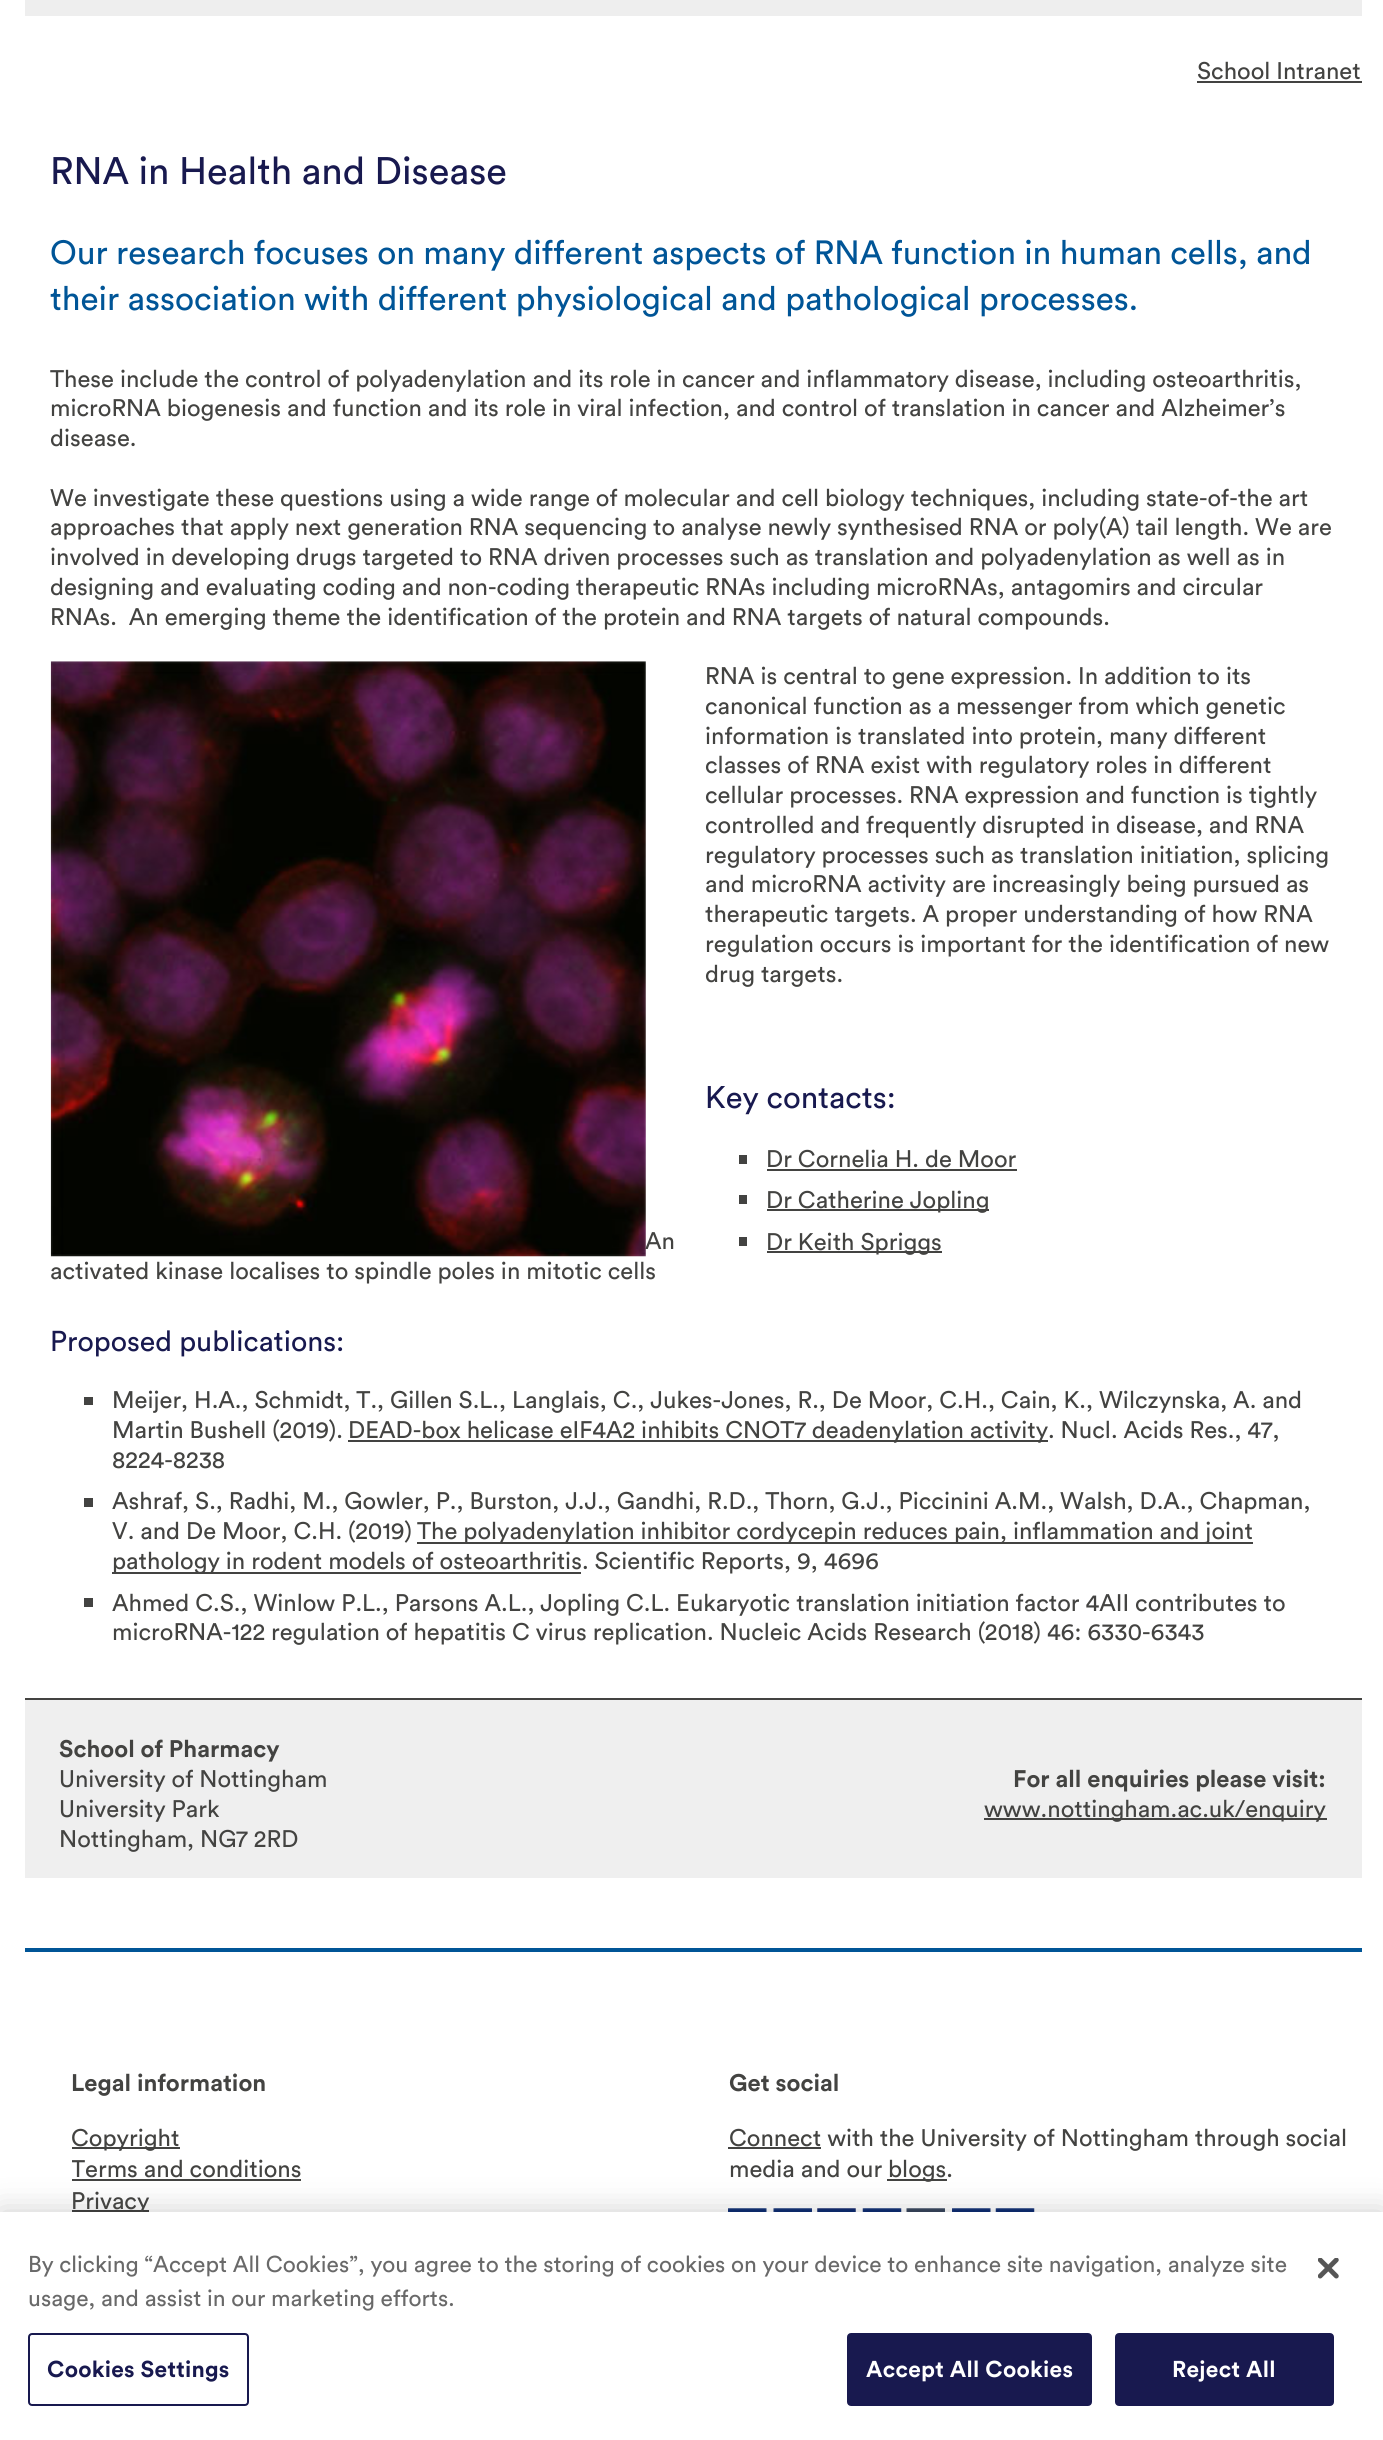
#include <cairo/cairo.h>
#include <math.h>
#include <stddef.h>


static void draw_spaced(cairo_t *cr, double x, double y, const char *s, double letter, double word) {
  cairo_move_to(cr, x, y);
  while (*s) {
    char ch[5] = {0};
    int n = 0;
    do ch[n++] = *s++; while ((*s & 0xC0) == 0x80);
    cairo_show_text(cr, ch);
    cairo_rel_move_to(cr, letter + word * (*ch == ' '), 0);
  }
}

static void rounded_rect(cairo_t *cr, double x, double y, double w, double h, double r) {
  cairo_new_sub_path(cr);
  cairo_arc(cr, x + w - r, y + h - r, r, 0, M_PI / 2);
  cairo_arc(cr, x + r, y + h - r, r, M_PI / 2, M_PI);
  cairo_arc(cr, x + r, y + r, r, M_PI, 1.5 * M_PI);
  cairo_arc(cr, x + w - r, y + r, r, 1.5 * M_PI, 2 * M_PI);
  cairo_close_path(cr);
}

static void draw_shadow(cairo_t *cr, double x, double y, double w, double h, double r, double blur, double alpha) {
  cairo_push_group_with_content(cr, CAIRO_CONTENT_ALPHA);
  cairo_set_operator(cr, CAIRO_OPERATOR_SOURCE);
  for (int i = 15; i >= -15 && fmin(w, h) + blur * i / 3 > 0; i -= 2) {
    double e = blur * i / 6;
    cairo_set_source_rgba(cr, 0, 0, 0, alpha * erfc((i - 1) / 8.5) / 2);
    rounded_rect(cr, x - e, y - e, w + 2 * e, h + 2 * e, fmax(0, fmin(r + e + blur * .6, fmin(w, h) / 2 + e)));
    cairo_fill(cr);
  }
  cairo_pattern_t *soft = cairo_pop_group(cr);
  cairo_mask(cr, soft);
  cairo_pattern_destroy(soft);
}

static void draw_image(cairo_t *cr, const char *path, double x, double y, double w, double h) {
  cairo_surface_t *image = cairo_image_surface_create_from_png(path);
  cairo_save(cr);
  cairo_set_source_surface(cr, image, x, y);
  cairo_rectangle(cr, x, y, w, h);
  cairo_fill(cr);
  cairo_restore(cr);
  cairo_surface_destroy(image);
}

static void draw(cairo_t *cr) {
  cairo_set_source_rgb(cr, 1, 1, 1);
  cairo_paint(cr);
  cairo_set_source_rgb(cr, 238 / 255.0, 238 / 255.0, 238 / 255.0);
  cairo_rectangle(cr, 25, 0, 1337, 16);
  cairo_fill(cr);
  cairo_set_source_rgb(cr, 67 / 255.0, 67 / 255.0, 65 / 255.0);
  cairo_rectangle(cr, 1197, 81, 165, 2);
  cairo_fill(cr);
  draw_image(cr, "images/1.png", 50, 661, 596, 596);
  cairo_rectangle(cr, 739, 1155, 8, 9);
  cairo_fill(cr);
  cairo_rectangle(cr, 767, 1169, 250, 2);
  cairo_fill(cr);
  cairo_rectangle(cr, 739, 1195, 8, 9);
  cairo_fill(cr);
  cairo_rectangle(cr, 767, 1209, 222, 2);
  cairo_fill(cr);
  cairo_rectangle(cr, 739, 1237, 8, 9);
  cairo_fill(cr);
  cairo_rectangle(cr, 767, 1251, 175, 2);
  cairo_fill(cr);
  cairo_rectangle(cr, 84, 1397, 9, 8);
  cairo_fill(cr);
  cairo_rectangle(cr, 348, 1440, 700, 2);
  cairo_fill(cr);
  cairo_rectangle(cr, 84, 1498, 9, 9);
  cairo_fill(cr);
  cairo_rectangle(cr, 417, 1542, 836, 2);
  cairo_fill(cr);
  cairo_rectangle(cr, 112, 1572, 469, 2);
  cairo_fill(cr);
  cairo_rectangle(cr, 84, 1598, 9, 9);
  cairo_fill(cr);
  cairo_set_source_rgb(cr, 239 / 255.0, 239 / 255.0, 239 / 255.0);
  cairo_rectangle(cr, 25, 1700, 1337, 178);
  cairo_fill(cr);
  cairo_set_source_rgb(cr, 67 / 255.0, 67 / 255.0, 65 / 255.0);
  cairo_rectangle(cr, 25, 1698, 1337, 2);
  cairo_fill(cr);
  cairo_rectangle(cr, 984, 1818, 343, 2);
  cairo_fill(cr);
  cairo_set_source_rgb(cr, 0, 85 / 255.0, 151 / 255.0);
  cairo_rectangle(cr, 25, 1948, 1337, 4);
  cairo_fill(cr);
  cairo_set_source_rgb(cr, 67 / 255.0, 67 / 255.0, 65 / 255.0);
  cairo_rectangle(cr, 72, 2147, 108, 2);
  cairo_fill(cr);
  cairo_rectangle(cr, 72, 2179, 229, 2);
  cairo_fill(cr);
  cairo_rectangle(cr, 72, 2210, 77, 2);
  cairo_fill(cr);
  cairo_rectangle(cr, 728, 2147, 93, 2);
  cairo_fill(cr);
  cairo_rectangle(cr, 887, 2179, 60, 2);
  cairo_fill(cr);
  draw_image(cr, "images/2.png", 728, 2208, 39, 4);
  draw_image(cr, "images/3.png", 773, 2208, 39, 4);
  draw_image(cr, "images/4.png", 817, 2208, 39, 4);
  draw_image(cr, "images/5.png", 862, 2208, 40, 4);
  draw_image(cr, "images/6.png", 906, 2208, 39, 4);
  draw_image(cr, "images/7.png", 952, 2208, 39, 4);
  draw_image(cr, "images/5.png", 995, 2208, 40, 4);
  cairo_set_source_rgb(cr, 0, 0, 0);
  draw_shadow(cr, 0, 2212, 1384, 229, 0, 16, 0.2);
  cairo_select_font_face(cr, "Circular", CAIRO_FONT_SLANT_NORMAL, CAIRO_FONT_WEIGHT_NORMAL);
  cairo_set_font_size(cr, 23.8);
  cairo_set_source_rgb(cr, 67 / 255.0, 67 / 255.0, 65 / 255.0);
  cairo_move_to(cr, 1197, 79);
  cairo_show_text(cr, "School Intranet");
  cairo_set_font_size(cr, 38);
  cairo_set_source_rgb(cr, 24 / 255.0, 25 / 255.0, 79 / 255.0);
  cairo_move_to(cr, 50, 184);
  cairo_show_text(cr, "RNA in Health and Disease");
  cairo_set_font_size(cr, 33.3);
  cairo_set_source_rgb(cr, 0, 85 / 255.0, 151 / 255.0);
  cairo_move_to(cr, 50, 264);
  cairo_show_text(cr, "Our research focuses on many different aspects of RNA function in human cells, and");
  cairo_move_to(cr, 50, 310);
  cairo_show_text(cr, "their association with different physiological and pathological processes.");
  cairo_set_font_size(cr, 23.8);
  cairo_set_source_rgb(cr, 67 / 255.0, 67 / 255.0, 65 / 255.0);
  cairo_move_to(cr, 50, 387);
  cairo_show_text(cr, "These include the control of polyadenylation and its role in cancer and inflammatory disease, including osteoarthritis,");
  cairo_move_to(cr, 50, 416);
  cairo_show_text(cr, "microRNA biogenesis and function and its role in viral infection, and control of translation in cancer and Alzheimer’s");
  cairo_move_to(cr, 50, 446);
  cairo_show_text(cr, "disease.");
  cairo_move_to(cr, 50, 506);
  cairo_show_text(cr, "We investigate these questions using a wide range of molecular and cell biology techniques, including state-of-the art");
  cairo_move_to(cr, 50, 535);
  cairo_show_text(cr, "approaches that apply next generation RNA sequencing to analyse newly synthesised RNA or poly(A) tail length. We are");
  cairo_move_to(cr, 50, 565);
  cairo_show_text(cr, "involved in developing drugs targeted to RNA driven processes such as translation and polyadenylation as well as in");
  cairo_move_to(cr, 50, 595);
  cairo_show_text(cr, "designing and evaluating coding and non-coding therapeutic RNAs including microRNAs, antagomirs and circular");
  cairo_move_to(cr, 50, 625);
  cairo_show_text(cr, "RNAs.  An emerging theme the identification of the protein and RNA targets of natural compounds.");
  cairo_move_to(cr, 645, 1249);
  cairo_show_text(cr, "An");
  cairo_move_to(cr, 50, 1279);
  cairo_show_text(cr, "activated kinase localises to spindle poles in mitotic cells");
  cairo_move_to(cr, 705, 684);
  cairo_show_text(cr, "RNA is central to gene expression. In addition to its");
  cairo_move_to(cr, 705, 714);
  cairo_show_text(cr, "canonical function as a messenger from which genetic");
  cairo_move_to(cr, 705, 744);
  cairo_show_text(cr, "information is translated into protein, many different");
  cairo_move_to(cr, 705, 773);
  cairo_show_text(cr, "classes of RNA exist with regulatory roles in different");
  cairo_move_to(cr, 705, 803);
  cairo_show_text(cr, "cellular processes. RNA expression and function is tightly");
  cairo_move_to(cr, 705, 833);
  cairo_show_text(cr, "controlled and frequently disrupted in disease, and RNA");
  cairo_move_to(cr, 705, 863);
  cairo_show_text(cr, "regulatory processes such as translation initiation, splicing");
  cairo_move_to(cr, 705, 892);
  cairo_show_text(cr, "and microRNA activity are increasingly being pursued as");
  cairo_move_to(cr, 705, 922);
  cairo_show_text(cr, "therapeutic targets. A proper understanding of how RNA");
  cairo_move_to(cr, 705, 952);
  cairo_show_text(cr, "regulation occurs is important for the identification of new");
  cairo_move_to(cr, 705, 982);
  cairo_show_text(cr, "drug targets.");
  cairo_set_font_size(cr, 31);
  cairo_set_source_rgb(cr, 24 / 255.0, 25 / 255.0, 79 / 255.0);
  cairo_move_to(cr, 705, 1108);
  cairo_show_text(cr, "Key contacts:");
  cairo_set_font_size(cr, 23.8);
  cairo_set_source_rgb(cr, 67 / 255.0, 67 / 255.0, 65 / 255.0);
  cairo_move_to(cr, 766, 1167);
  cairo_show_text(cr, "Dr Cornelia H. de Moor");
  cairo_move_to(cr, 766, 1208);
  cairo_show_text(cr, "Dr Catherine Jopling");
  cairo_move_to(cr, 766, 1250);
  cairo_show_text(cr, "Dr Keith Spriggs");
  cairo_set_font_size(cr, 28.5);
  cairo_set_source_rgb(cr, 24 / 255.0, 25 / 255.0, 79 / 255.0);
  cairo_move_to(cr, 50, 1351);
  cairo_show_text(cr, "Proposed publications:");
  cairo_set_font_size(cr, 23.8);
  cairo_set_source_rgb(cr, 67 / 255.0, 67 / 255.0, 65 / 255.0);
  cairo_move_to(cr, 112, 1408);
  cairo_show_text(cr, "Meijer, H.A., Schmidt, T., Gillen S.L., Langlais, C., Jukes-Jones, R., De Moor, C.H., Cain, K., Wilczynska, A. and");
  cairo_move_to(cr, 112, 1438);
  cairo_show_text(cr, "Martin Bushell (2019).");
  cairo_move_to(cr, 348, 1438);
  cairo_show_text(cr, "DEAD-box helicase eIF4A2 inhibits CNOT7 deadenylation activity");
  cairo_move_to(cr, 1048, 1438);
  cairo_show_text(cr, ". Nucl. Acids Res., 47,");
  cairo_move_to(cr, 112, 1468);
  cairo_show_text(cr, "8224-8238");
  cairo_move_to(cr, 112, 1509);
  cairo_show_text(cr, "Ashraf, S., Radhi, M., Gowler, P., Burston, J.J., Gandhi, R.D., Thorn, G.J., Piccinini A.M., Walsh, D.A., Chapman,");
  cairo_move_to(cr, 112, 1539);
  cairo_show_text(cr, "V. and De Moor, C.H. (2019)");
  cairo_move_to(cr, 417, 1539);
  cairo_show_text(cr, "The polyadenylation inhibitor cordycepin reduces pain, inflammation and joint");
  cairo_move_to(cr, 112, 1569);
  cairo_show_text(cr, "pathology in rodent models of osteoarthritis. Scientific Reports, 9, 4696");
  cairo_move_to(cr, 112, 1611);
  cairo_show_text(cr, "Ahmed C.S., Winlow P.L., Parsons A.L., Jopling C.L. Eukaryotic translation initiation factor 4AII contributes to");
  cairo_move_to(cr, 112, 1640);
  cairo_show_text(cr, "microRNA-122 regulation of hepatitis C virus replication. Nucleic Acids Research (2018) 46: 6330-6343");
  cairo_select_font_face(cr, "Circular", CAIRO_FONT_SLANT_NORMAL, CAIRO_FONT_WEIGHT_BOLD);
  cairo_move_to(cr, 59, 1757);
  cairo_show_text(cr, "School of Pharmacy");
  cairo_select_font_face(cr, "Circular", CAIRO_FONT_SLANT_NORMAL, CAIRO_FONT_WEIGHT_NORMAL);
  cairo_move_to(cr, 59, 1787);
  cairo_show_text(cr, "University of Nottingham");
  cairo_move_to(cr, 59, 1817);
  cairo_show_text(cr, "University Park");
  cairo_move_to(cr, 59, 1847);
  cairo_show_text(cr, "Nottingham, NG7 2RD");
  cairo_select_font_face(cr, "Circular", CAIRO_FONT_SLANT_NORMAL, CAIRO_FONT_WEIGHT_BOLD);
  cairo_move_to(cr, 1013, 1787);
  cairo_show_text(cr, "For all enquiries please visit:");
  cairo_select_font_face(cr, "Circular", CAIRO_FONT_SLANT_NORMAL, CAIRO_FONT_WEIGHT_NORMAL);
  cairo_move_to(cr, 984, 1817);
  cairo_show_text(cr, "www.nottingham.ac.uk/enquiry");
  cairo_select_font_face(cr, "Circular", CAIRO_FONT_SLANT_NORMAL, CAIRO_FONT_WEIGHT_BOLD);
  cairo_move_to(cr, 71, 2091);
  cairo_show_text(cr, "Legal information");
  cairo_select_font_face(cr, "Circular", CAIRO_FONT_SLANT_NORMAL, CAIRO_FONT_WEIGHT_NORMAL);
  cairo_move_to(cr, 71, 2146);
  cairo_show_text(cr, "Copyright");
  cairo_save(cr);
  cairo_rectangle(cr, 72, 2042, 1290, 359);
  cairo_clip(cr);
  cairo_move_to(cr, 71, 2177);
  cairo_show_text(cr, "Terms and conditions");
  cairo_restore(cr);
  cairo_move_to(cr, 71, 2209);
  cairo_show_text(cr, "Privacy");
  cairo_select_font_face(cr, "Circular", CAIRO_FONT_SLANT_NORMAL, CAIRO_FONT_WEIGHT_BOLD);
  cairo_move_to(cr, 729, 2091);
  cairo_show_text(cr, "Get social");
  cairo_select_font_face(cr, "Circular", CAIRO_FONT_SLANT_NORMAL, CAIRO_FONT_WEIGHT_NORMAL);
  cairo_move_to(cr, 729, 2146);
  cairo_show_text(cr, "Connect with the University of Nottingham through social");
  cairo_move_to(cr, 729, 2177);
  cairo_show_text(cr, "media and our");
  cairo_move_to(cr, 888, 2177);
  cairo_show_text(cr, "blogs.");
  cairo_set_source_rgb(cr, 1, 1, 1);
  cairo_rectangle(cr, 0, 2212, 1383, 228);
  cairo_fill(cr);
  cairo_set_font_size(cr, 22.75);
  cairo_set_source_rgb(cr, 105 / 255.0, 105 / 255.0, 105 / 255.0);
  cairo_move_to(cr, 28, 2272);
  cairo_show_text(cr, "By clicking “Accept All Cookies”, you agree to the storing of cookies on your device to enhance site navigation, analyze site");
  cairo_move_to(cr, 28, 2306);
  cairo_show_text(cr, "usage, and assist in our marketing efforts.");
  rounded_rect(cr, 29, 2334, 219, 71, 3);
  cairo_set_source_rgb(cr, 24 / 255.0, 25 / 255.0, 79 / 255.0);
  cairo_stroke(cr);
  cairo_select_font_face(cr, "Circular", CAIRO_FONT_SLANT_NORMAL, CAIRO_FONT_WEIGHT_BOLD);
  draw_spaced(cr, 47, 2377, "Cookies Settings", 0.25, 0);
  rounded_rect(cr, 848, 2334, 243, 71, 3);
  cairo_fill_preserve(cr);
  cairo_stroke(cr);
  cairo_set_source_rgb(cr, 1, 1, 1);
  draw_spaced(cr, 866, 2377, "Accept All Cookies", 0.25, 0);
  cairo_set_source_rgb(cr, 24 / 255.0, 25 / 255.0, 79 / 255.0);
  rounded_rect(cr, 1116, 2334, 217, 71, 3);
  cairo_fill_preserve(cr);
  cairo_stroke(cr);
  cairo_set_source_rgb(cr, 1, 1, 1);
  draw_spaced(cr, 1172, 2377, "Reject All", 0.25, 0);
  draw_image(cr, "images/8.png", 1318, 2258, 21, 21);
}

int main(void) {
  cairo_surface_t *surface = cairo_image_surface_create(CAIRO_FORMAT_RGB24, 1383, 2440);
  cairo_t *cr = cairo_create(surface);
  cairo_font_options_t *options = cairo_font_options_create();
  cairo_font_options_set_hint_metrics(options, CAIRO_HINT_METRICS_OFF);
  cairo_font_options_set_hint_style(options, CAIRO_HINT_STYLE_NONE);
  cairo_set_font_options(cr, options);
  cairo_set_miter_limit(cr, 4);
  draw(cr);
  cairo_surface_write_to_png(surface, "out.png");
  cairo_font_options_destroy(options);
  cairo_destroy(cr);
  cairo_surface_destroy(surface);
  return 0;
}
